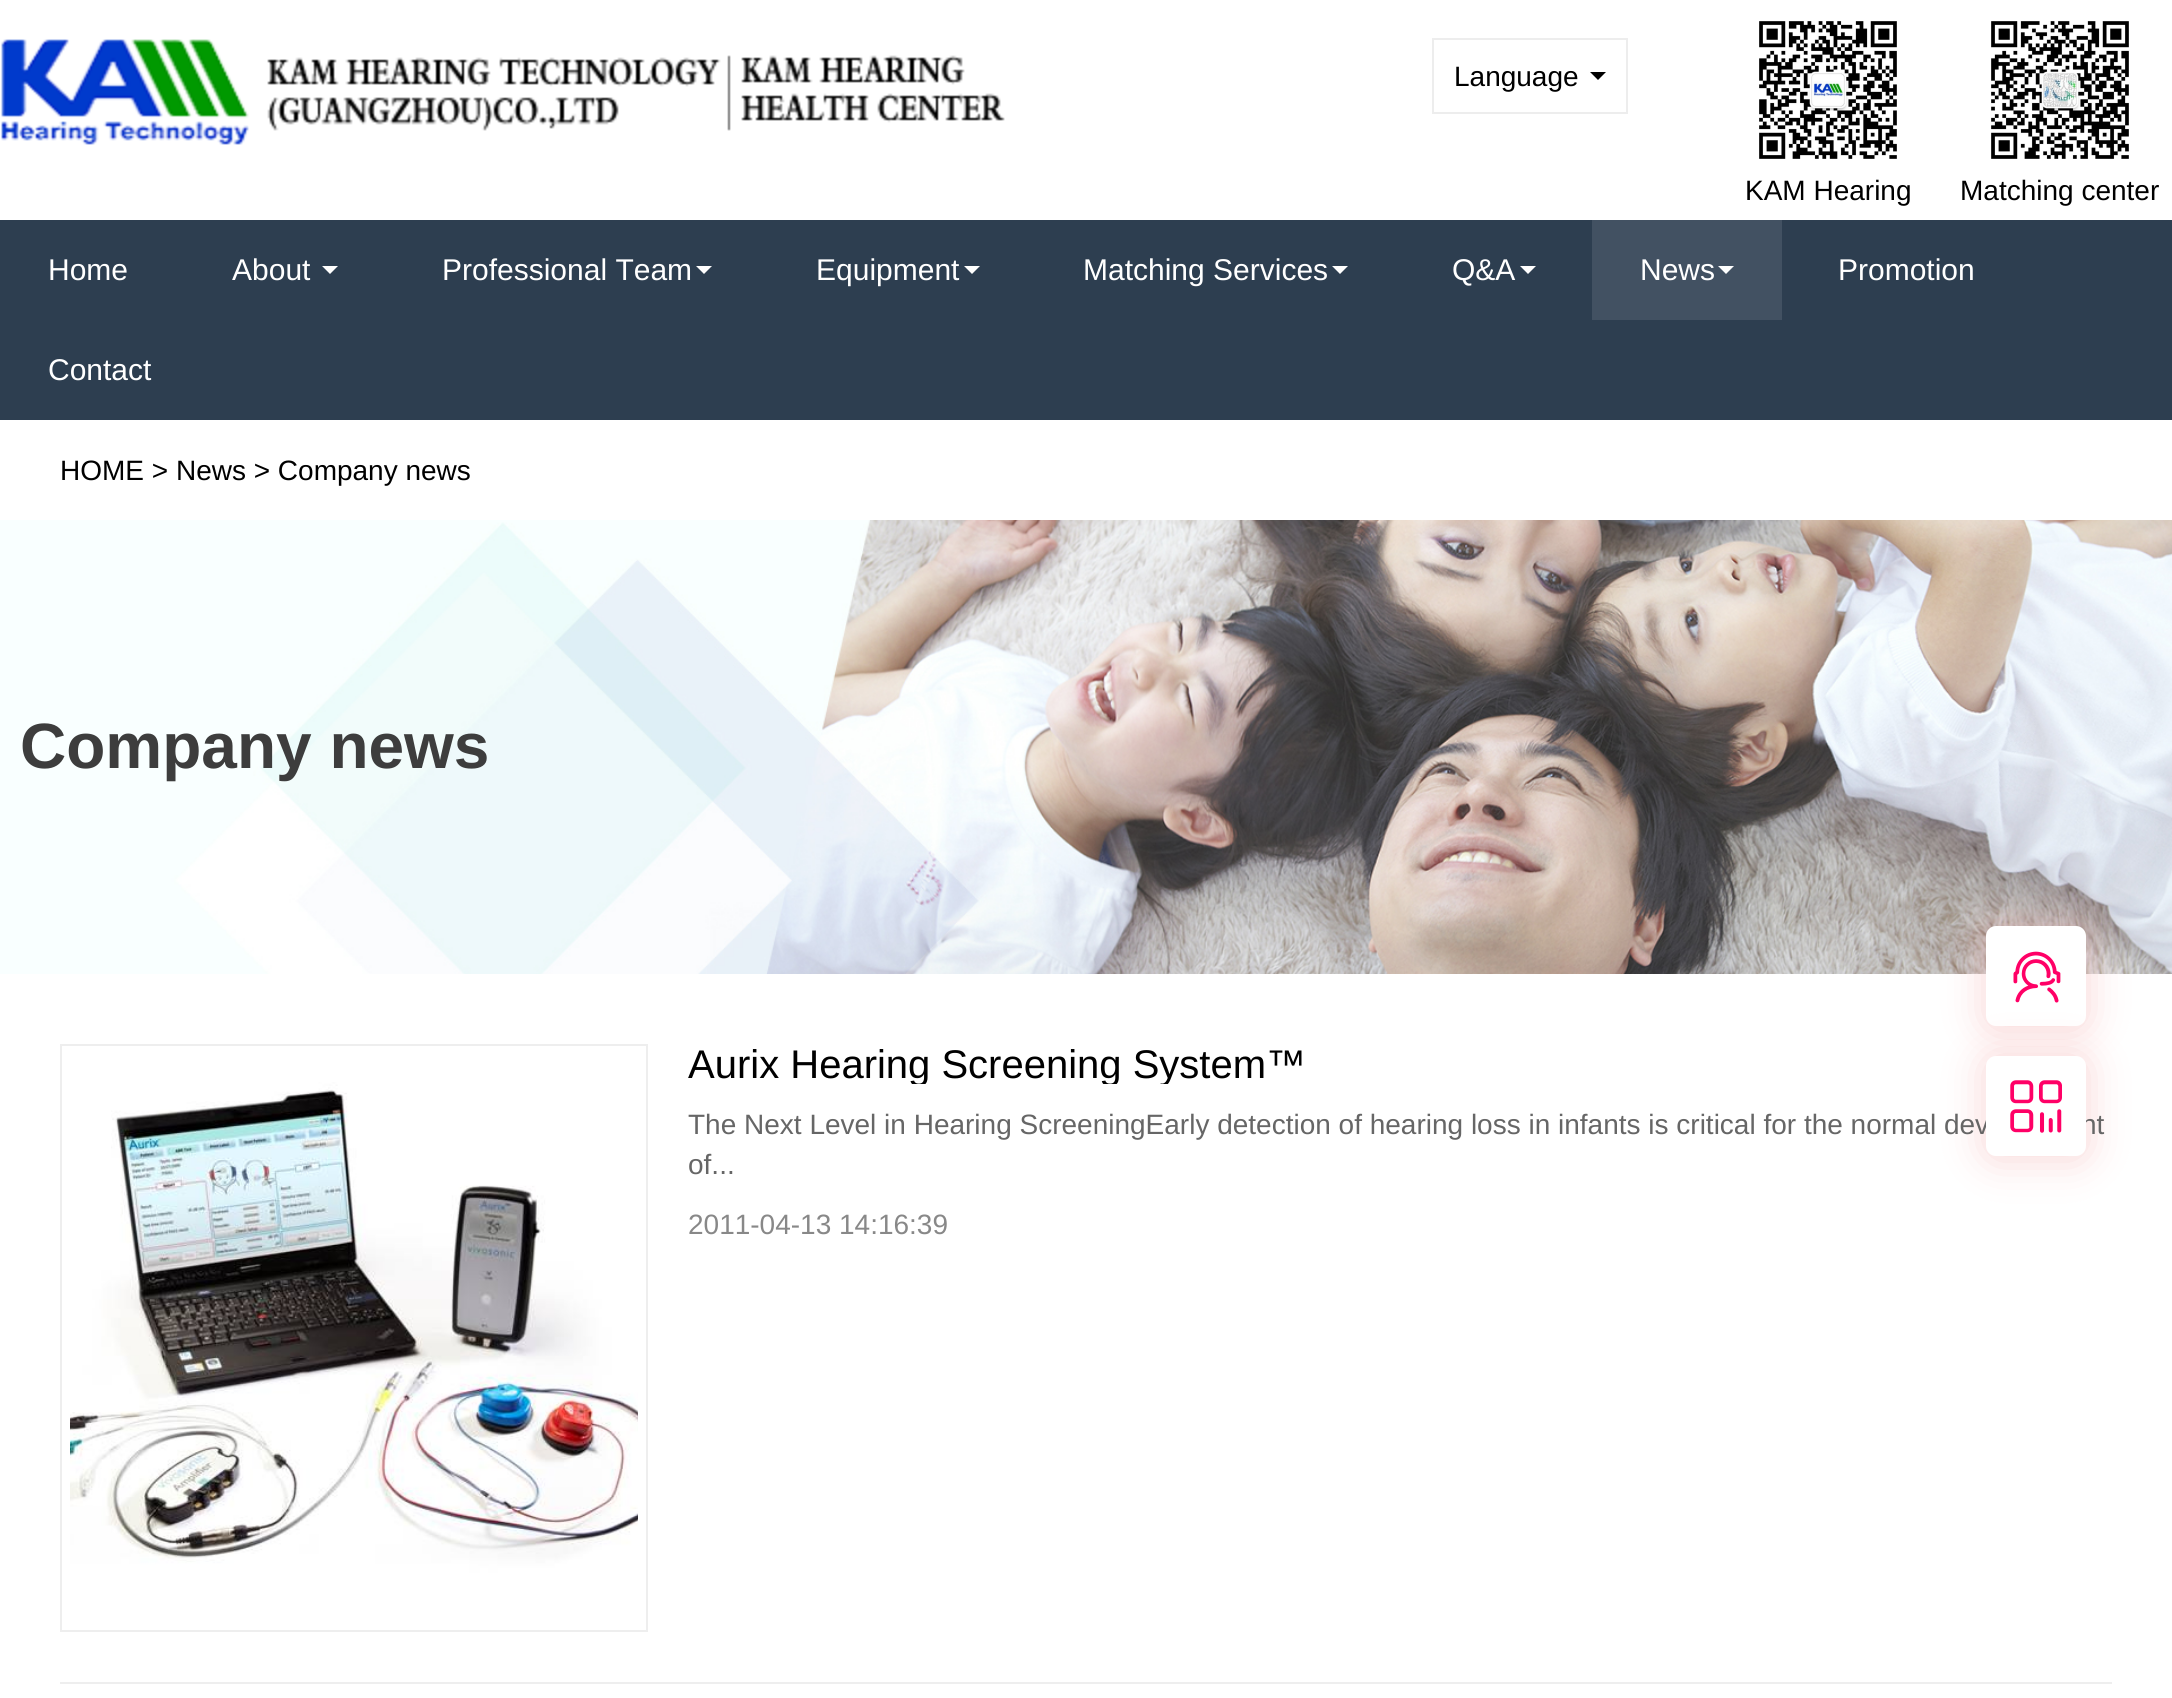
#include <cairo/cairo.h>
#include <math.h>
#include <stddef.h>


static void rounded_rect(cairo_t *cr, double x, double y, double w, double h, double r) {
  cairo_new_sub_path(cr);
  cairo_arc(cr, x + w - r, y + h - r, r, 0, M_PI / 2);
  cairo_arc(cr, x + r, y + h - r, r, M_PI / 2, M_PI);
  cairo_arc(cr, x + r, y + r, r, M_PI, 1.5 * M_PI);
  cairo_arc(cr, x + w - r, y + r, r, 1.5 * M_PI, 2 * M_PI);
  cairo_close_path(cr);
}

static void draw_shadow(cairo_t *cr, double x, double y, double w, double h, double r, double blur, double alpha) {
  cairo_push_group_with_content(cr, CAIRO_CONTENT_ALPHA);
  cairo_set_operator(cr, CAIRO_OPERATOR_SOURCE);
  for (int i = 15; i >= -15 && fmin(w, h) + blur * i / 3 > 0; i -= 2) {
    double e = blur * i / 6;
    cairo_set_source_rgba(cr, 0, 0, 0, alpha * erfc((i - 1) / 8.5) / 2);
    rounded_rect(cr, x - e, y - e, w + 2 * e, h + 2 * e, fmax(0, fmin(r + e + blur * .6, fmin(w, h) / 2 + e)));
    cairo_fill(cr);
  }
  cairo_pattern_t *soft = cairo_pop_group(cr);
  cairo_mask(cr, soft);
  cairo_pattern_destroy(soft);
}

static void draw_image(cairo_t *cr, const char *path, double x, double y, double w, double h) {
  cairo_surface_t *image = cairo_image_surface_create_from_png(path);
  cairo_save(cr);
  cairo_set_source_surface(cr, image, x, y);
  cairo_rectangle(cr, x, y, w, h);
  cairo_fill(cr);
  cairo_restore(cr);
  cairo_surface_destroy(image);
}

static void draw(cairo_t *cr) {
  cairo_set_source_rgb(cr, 1, 1, 1);
  cairo_paint(cr);
  draw_image(cr, "images/1.png", 1, 39, 1004, 106);
  cairo_rectangle(cr, 1433, 39, 194, 74);
  cairo_set_source_rgb(cr, 237 / 255.0, 237 / 255.0, 237 / 255.0);
  cairo_stroke(cr);
  cairo_set_source_rgb(cr, 0, 0, 0);
  cairo_new_path(cr);
  cairo_move_to(cr, 1590, 72);
  cairo_line_to(cr, 1606, 72);
  cairo_line_to(cr, 1598, 80);
  cairo_close_path(cr);
  cairo_fill(cr);
  draw_image(cr, "images/2.png", 1759, 21, 138, 138);
  draw_image(cr, "images/3.png", 1991, 21, 138, 138);
  cairo_set_source_rgb(cr, 45 / 255.0, 62 / 255.0, 80 / 255.0);
  cairo_rectangle(cr, 0, 220, 2172, 200);
  cairo_fill(cr);
  cairo_set_source_rgb(cr, 1, 1, 1);
  cairo_new_path(cr);
  cairo_move_to(cr, 322, 266);
  cairo_line_to(cr, 338, 266);
  cairo_line_to(cr, 330, 274);
  cairo_close_path(cr);
  cairo_fill(cr);
  cairo_new_path(cr);
  cairo_move_to(cr, 696, 266);
  cairo_line_to(cr, 712, 266);
  cairo_line_to(cr, 704, 274);
  cairo_close_path(cr);
  cairo_fill(cr);
  cairo_new_path(cr);
  cairo_move_to(cr, 964, 266);
  cairo_line_to(cr, 980, 266);
  cairo_line_to(cr, 972, 274);
  cairo_close_path(cr);
  cairo_fill(cr);
  cairo_new_path(cr);
  cairo_move_to(cr, 1332, 266);
  cairo_line_to(cr, 1348, 266);
  cairo_line_to(cr, 1340, 274);
  cairo_close_path(cr);
  cairo_fill(cr);
  cairo_new_path(cr);
  cairo_move_to(cr, 1520, 266);
  cairo_line_to(cr, 1536, 266);
  cairo_line_to(cr, 1528, 274);
  cairo_close_path(cr);
  cairo_fill(cr);
  cairo_set_source_rgb(cr, 66 / 255.0, 81 / 255.0, 98 / 255.0);
  cairo_rectangle(cr, 1592, 220, 190, 100);
  cairo_fill(cr);
  cairo_set_source_rgb(cr, 1, 1, 1);
  cairo_new_path(cr);
  cairo_move_to(cr, 1718, 266);
  cairo_line_to(cr, 1734, 266);
  cairo_line_to(cr, 1726, 274);
  cairo_close_path(cr);
  cairo_fill(cr);
  draw_image(cr, "images/4.png", 0, 520, 2172, 454);
  cairo_set_source_rgb(cr, 241 / 255.0, 155 / 255.0, 155 / 255.0);
  draw_shadow(cr, 1984, 926, 104, 104, 12, 20, 0.4);
  cairo_set_source_rgb(cr, 1, 1, 1);
  rounded_rect(cr, 1986, 926, 100, 100, 10);
  cairo_fill(cr);
  draw_image(cr, "images/5.png", 2013, 951, 48, 52);
  cairo_set_source_rgb(cr, 241 / 255.0, 155 / 255.0, 155 / 255.0);
  draw_shadow(cr, 1984, 1056, 104, 104, 12, 20, 0.4);
  cairo_rectangle(cr, 61, 1045, 586, 586);
  cairo_set_source_rgb(cr, 238 / 255.0, 238 / 255.0, 238 / 255.0);
  cairo_stroke(cr);
  draw_image(cr, "images/7.png", 70, 1054, 568, 568);
  cairo_rectangle(cr, 60, 1682, 2052, 2);
  cairo_fill(cr);
  cairo_select_font_face(cr, "Liberation Sans", CAIRO_FONT_SLANT_NORMAL, CAIRO_FONT_WEIGHT_NORMAL);
  cairo_set_font_size(cr, 28);
  cairo_set_source_rgb(cr, 0, 0, 0);
  cairo_move_to(cr, 1454, 86);
  cairo_show_text(cr, "Language");
  cairo_move_to(cr, 1745, 200);
  cairo_show_text(cr, "KAM Hearing");
  cairo_move_to(cr, 1960, 200);
  cairo_show_text(cr, "Matching center");
  cairo_set_font_size(cr, 30);
  cairo_set_source_rgb(cr, 1, 1, 1);
  cairo_move_to(cr, 48, 280);
  cairo_show_text(cr, "Home");
  cairo_move_to(cr, 232, 280);
  cairo_show_text(cr, "About");
  cairo_move_to(cr, 442, 280);
  cairo_show_text(cr, "Professional Team");
  cairo_move_to(cr, 816, 280);
  cairo_show_text(cr, "Equipment");
  cairo_move_to(cr, 1083, 280);
  cairo_show_text(cr, "Matching Services");
  cairo_move_to(cr, 1452, 280);
  cairo_show_text(cr, "Q&A");
  cairo_move_to(cr, 1640, 280);
  cairo_show_text(cr, "News");
  cairo_move_to(cr, 1838, 280);
  cairo_show_text(cr, "Promotion");
  cairo_move_to(cr, 48, 380);
  cairo_show_text(cr, "Contact");
  cairo_set_font_size(cr, 28);
  cairo_set_source_rgb(cr, 0, 0, 0);
  cairo_move_to(cr, 60, 480);
  cairo_show_text(cr, "HOME > News > Company news");
  cairo_select_font_face(cr, "Liberation Sans", CAIRO_FONT_SLANT_NORMAL, CAIRO_FONT_WEIGHT_BOLD);
  cairo_set_font_size(cr, 64);
  cairo_set_source_rgb(cr, 61 / 255.0, 61 / 255.0, 61 / 255.0);
  cairo_move_to(cr, 20, 768);
  cairo_show_text(cr, "Company news");
  cairo_save(cr);
  cairo_rectangle(cr, 688, 1044, 1424, 40);
  cairo_clip(cr);
  cairo_select_font_face(cr, "Liberation Sans", CAIRO_FONT_SLANT_NORMAL, CAIRO_FONT_WEIGHT_NORMAL);
  cairo_set_font_size(cr, 40);
  cairo_set_source_rgb(cr, 0, 0, 0);
  cairo_move_to(cr, 688, 1078);
  cairo_show_text(cr, "Aurix Hearing Screening System™");
  cairo_restore(cr);
  cairo_select_font_face(cr, "Liberation Sans", CAIRO_FONT_SLANT_NORMAL, CAIRO_FONT_WEIGHT_NORMAL);
  cairo_set_font_size(cr, 28);
  cairo_set_source_rgb(cr, 102 / 255.0, 102 / 255.0, 102 / 255.0);
  cairo_move_to(cr, 688, 1134);
  cairo_show_text(cr, "The Next Level in Hearing ScreeningEarly detection of hearing loss in infants is critical for the normal dev");
  cairo_move_to(cr, 2081, 1134);
  cairo_show_text(cr, "nt");
  cairo_set_source_rgb(cr, 1, 1, 1);
  rounded_rect(cr, 1986, 1056, 100, 100, 10);
  cairo_fill(cr);
  draw_image(cr, "images/6.png", 2010, 1080, 52, 53);
  cairo_set_source_rgb(cr, 102 / 255.0, 102 / 255.0, 102 / 255.0);
  cairo_move_to(cr, 688, 1174);
  cairo_show_text(cr, "of...");
  cairo_set_source_rgb(cr, 136 / 255.0, 136 / 255.0, 136 / 255.0);
  cairo_move_to(cr, 688, 1234);
  cairo_show_text(cr, "2011-04-13 14:16:39");
}

int main(void) {
  cairo_surface_t *surface = cairo_image_surface_create(CAIRO_FORMAT_RGB24, 2172, 1698);
  cairo_t *cr = cairo_create(surface);
  cairo_font_options_t *options = cairo_font_options_create();
  cairo_font_options_set_hint_metrics(options, CAIRO_HINT_METRICS_OFF);
  cairo_font_options_set_hint_style(options, CAIRO_HINT_STYLE_NONE);
  cairo_set_font_options(cr, options);
  cairo_set_miter_limit(cr, 4);
  draw(cr);
  cairo_surface_write_to_png(surface, "out.png");
  cairo_font_options_destroy(options);
  cairo_destroy(cr);
  cairo_surface_destroy(surface);
  return 0;
}
